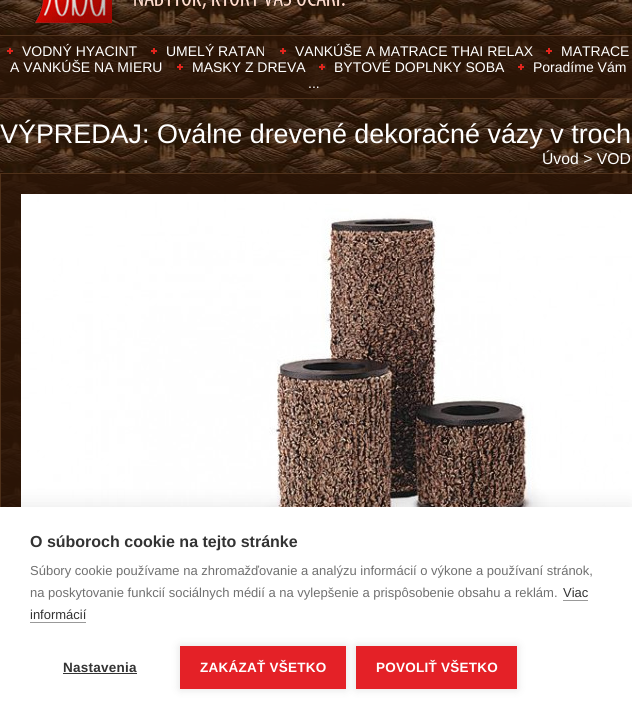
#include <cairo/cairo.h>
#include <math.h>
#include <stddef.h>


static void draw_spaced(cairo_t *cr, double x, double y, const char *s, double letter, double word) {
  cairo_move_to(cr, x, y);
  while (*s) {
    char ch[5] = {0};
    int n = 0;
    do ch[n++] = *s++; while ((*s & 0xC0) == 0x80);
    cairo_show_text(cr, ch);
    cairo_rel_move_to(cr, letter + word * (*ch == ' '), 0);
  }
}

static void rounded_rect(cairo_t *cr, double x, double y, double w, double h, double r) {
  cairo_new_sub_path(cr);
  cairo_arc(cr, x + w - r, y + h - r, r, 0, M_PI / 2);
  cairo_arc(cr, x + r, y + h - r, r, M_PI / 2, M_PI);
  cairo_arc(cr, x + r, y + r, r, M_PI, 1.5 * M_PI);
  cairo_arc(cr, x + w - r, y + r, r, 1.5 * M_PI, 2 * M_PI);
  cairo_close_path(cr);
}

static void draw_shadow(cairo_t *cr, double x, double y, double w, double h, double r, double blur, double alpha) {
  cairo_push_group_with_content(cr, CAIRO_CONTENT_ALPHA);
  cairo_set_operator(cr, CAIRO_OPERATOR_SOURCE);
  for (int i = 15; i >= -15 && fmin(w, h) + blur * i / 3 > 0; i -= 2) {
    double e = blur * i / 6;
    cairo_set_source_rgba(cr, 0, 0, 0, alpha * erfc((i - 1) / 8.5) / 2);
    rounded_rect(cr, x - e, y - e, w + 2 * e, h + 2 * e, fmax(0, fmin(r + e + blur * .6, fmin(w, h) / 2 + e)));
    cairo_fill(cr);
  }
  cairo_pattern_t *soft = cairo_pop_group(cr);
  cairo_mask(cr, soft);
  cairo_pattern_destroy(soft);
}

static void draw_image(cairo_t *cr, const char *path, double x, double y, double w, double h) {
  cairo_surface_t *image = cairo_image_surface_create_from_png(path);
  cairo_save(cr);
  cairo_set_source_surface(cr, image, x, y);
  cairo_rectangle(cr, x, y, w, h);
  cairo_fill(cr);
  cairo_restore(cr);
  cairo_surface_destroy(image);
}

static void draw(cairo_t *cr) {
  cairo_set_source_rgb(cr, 1, 1, 1);
  cairo_paint(cr);
  draw_image(cr, "images/1.png", 0, 0, 632, 507);
  draw_image(cr, "images/2.png", 34, 0, 311, 23);
  cairo_set_source_rgba(cr, 43 / 255.0, 21 / 255.0, 6 / 255.0, 0.7);
  cairo_rectangle(cr, 0, 36, 632, 62);
  cairo_fill(cr);
  cairo_set_source_rgb(cr, 79 / 255.0, 49 / 255.0, 26 / 255.0);
  cairo_rectangle(cr, 0, 35, 632, 1);
  cairo_fill(cr);
  cairo_rectangle(cr, 0, 98, 632, 1);
  cairo_fill(cr);
  draw_image(cr, "images/3.png", 7, 48, 6, 6);
  draw_image(cr, "images/4.png", 151, 48, 6, 6);
  draw_image(cr, "images/5.png", 280, 48, 6, 6);
  draw_image(cr, "images/6.png", 546, 48, 6, 6);
  draw_image(cr, "images/7.png", 177, 64, 6, 6);
  draw_image(cr, "images/8.png", 319, 64, 6, 6);
  draw_image(cr, "images/9.png", 518, 64, 6, 6);
  cairo_set_source_rgba(cr, 43 / 255.0, 21 / 255.0, 6 / 255.0, 0.85);
  cairo_rectangle(cr, 1, 174, 631, 333);
  cairo_fill(cr);
  cairo_rectangle(cr, 0.5, 173.5, 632, 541);
  cairo_set_source_rgb(cr, 79 / 255.0, 49 / 255.0, 26 / 255.0);
  cairo_set_line_width(cr, 1);
  cairo_stroke(cr);
  draw_image(cr, "images/10.png", 21, 194, 611, 313);
  cairo_set_source_rgb(cr, 0, 0, 0);
  draw_shadow(cr, 0, 507, 632, 207, 0, 10, 0.1);
  cairo_set_source_rgb(cr, 1, 1, 1);
  cairo_rectangle(cr, 0, 507, 632, 207);
  cairo_fill(cr);
  cairo_set_source_rgb(cr, 153 / 255.0, 153 / 255.0, 153 / 255.0);
  cairo_rectangle(cr, 563, 600, 25, 1);
  cairo_fill(cr);
  cairo_rectangle(cr, 30, 622, 56, 1);
  cairo_fill(cr);
  cairo_set_source_rgb(cr, 51 / 255.0, 51 / 255.0, 51 / 255.0);
  cairo_rectangle(cr, 63, 673, 74, 1);
  cairo_fill(cr);
  cairo_set_source_rgb(cr, 0, 0, 0);
  draw_shadow(cr, 180, 646, 166, 43, 0, 5, 0.12);
  cairo_set_source_rgb(cr, 228 / 255.0, 33 / 255.0, 39 / 255.0);
  cairo_rectangle(cr, 180, 646, 166, 43);
  cairo_fill(cr);
  cairo_set_source_rgb(cr, 0, 0, 0);
  draw_shadow(cr, 356, 646, 161, 43, 0, 5, 0.12);
  cairo_set_source_rgb(cr, 228 / 255.0, 33 / 255.0, 39 / 255.0);
  cairo_rectangle(cr, 356, 646, 161, 43);
  cairo_fill(cr);
  cairo_select_font_face(cr, "Liberation Sans", CAIRO_FONT_SLANT_NORMAL, CAIRO_FONT_WEIGHT_NORMAL);
  cairo_set_font_size(cr, 14);
  cairo_set_source_rgb(cr, 1, 1, 1);
  cairo_move_to(cr, 22, 56);
  cairo_show_text(cr, "VODNÝ HYACINT");
  cairo_move_to(cr, 166, 56);
  cairo_show_text(cr, "UMELÝ RATAN");
  cairo_move_to(cr, 295, 56);
  cairo_show_text(cr, "VANKÚŠE A MATRACE THAI RELAX");
  cairo_move_to(cr, 561, 56);
  cairo_show_text(cr, "MATRACE");
  cairo_move_to(cr, 10, 72);
  cairo_show_text(cr, "A VANKÚŠE NA MIERU");
  cairo_move_to(cr, 192, 72);
  cairo_show_text(cr, "MASKY Z DREVA");
  cairo_move_to(cr, 334, 72);
  cairo_show_text(cr, "BYTOVÉ DOPLNKY SOBA");
  cairo_move_to(cr, 533, 72);
  cairo_show_text(cr, "Poradíme Vám");
  cairo_move_to(cr, 308, 88);
  cairo_show_text(cr, "...");
  cairo_set_font_size(cr, 26.9);
  cairo_move_to(cr, 0, 143);
  cairo_show_text(cr, "VÝPREDAJ: Oválne drevené dekoračné vázy v troch");
  cairo_set_font_size(cr, 15.75);
  cairo_move_to(cr, 542, 164);
  cairo_show_text(cr, "Úvod > VOD");
  cairo_select_font_face(cr, "Liberation Sans", CAIRO_FONT_SLANT_NORMAL, CAIRO_FONT_WEIGHT_BOLD);
  cairo_set_font_size(cr, 16);
  cairo_set_source_rgb(cr, 51 / 255.0, 51 / 255.0, 51 / 255.0);
  cairo_move_to(cr, 30, 547);
  cairo_show_text(cr, "O súboroch cookie na tejto stránke");
  cairo_select_font_face(cr, "Liberation Sans", CAIRO_FONT_SLANT_NORMAL, CAIRO_FONT_WEIGHT_NORMAL);
  cairo_set_font_size(cr, 13);
  cairo_set_source_rgb(cr, 112 / 255.0, 112 / 255.0, 112 / 255.0);
  cairo_move_to(cr, 30, 575);
  cairo_show_text(cr, "Súbory cookie používame na zhromažďovanie a analýzu informácií o výkone a používaní stránok,");
  cairo_move_to(cr, 30, 597);
  cairo_show_text(cr, "na poskytovanie funkcií sociálnych médií a na vylepšenie a prispôsobenie obsahu a reklám.");
  cairo_set_source_rgb(cr, 51 / 255.0, 51 / 255.0, 51 / 255.0);
  cairo_move_to(cr, 563, 597);
  cairo_show_text(cr, "Viac");
  cairo_move_to(cr, 30, 619);
  cairo_show_text(cr, "informácií");
  cairo_select_font_face(cr, "Liberation Sans", CAIRO_FONT_SLANT_NORMAL, CAIRO_FONT_WEIGHT_BOLD);
  cairo_set_font_size(cr, 13.5);
  draw_spaced(cr, 63, 672, "Nastavenia", 0.25, 0);
  cairo_set_source_rgb(cr, 1, 1, 1);
  draw_spaced(cr, 200, 672, "ZAKÁZAŤ VŠETKO", 0.25, 0);
  draw_spaced(cr, 376, 672, "POVOLIŤ VŠETKO", 0.25, 0);
}

int main(void) {
  cairo_surface_t *surface = cairo_image_surface_create(CAIRO_FORMAT_RGB24, 632, 714);
  cairo_t *cr = cairo_create(surface);
  cairo_font_options_t *options = cairo_font_options_create();
  cairo_font_options_set_hint_metrics(options, CAIRO_HINT_METRICS_OFF);
  cairo_font_options_set_hint_style(options, CAIRO_HINT_STYLE_NONE);
  cairo_set_font_options(cr, options);
  cairo_set_miter_limit(cr, 4);
  draw(cr);
  cairo_surface_write_to_png(surface, "out.png");
  cairo_font_options_destroy(options);
  cairo_destroy(cr);
  cairo_surface_destroy(surface);
  return 0;
}
